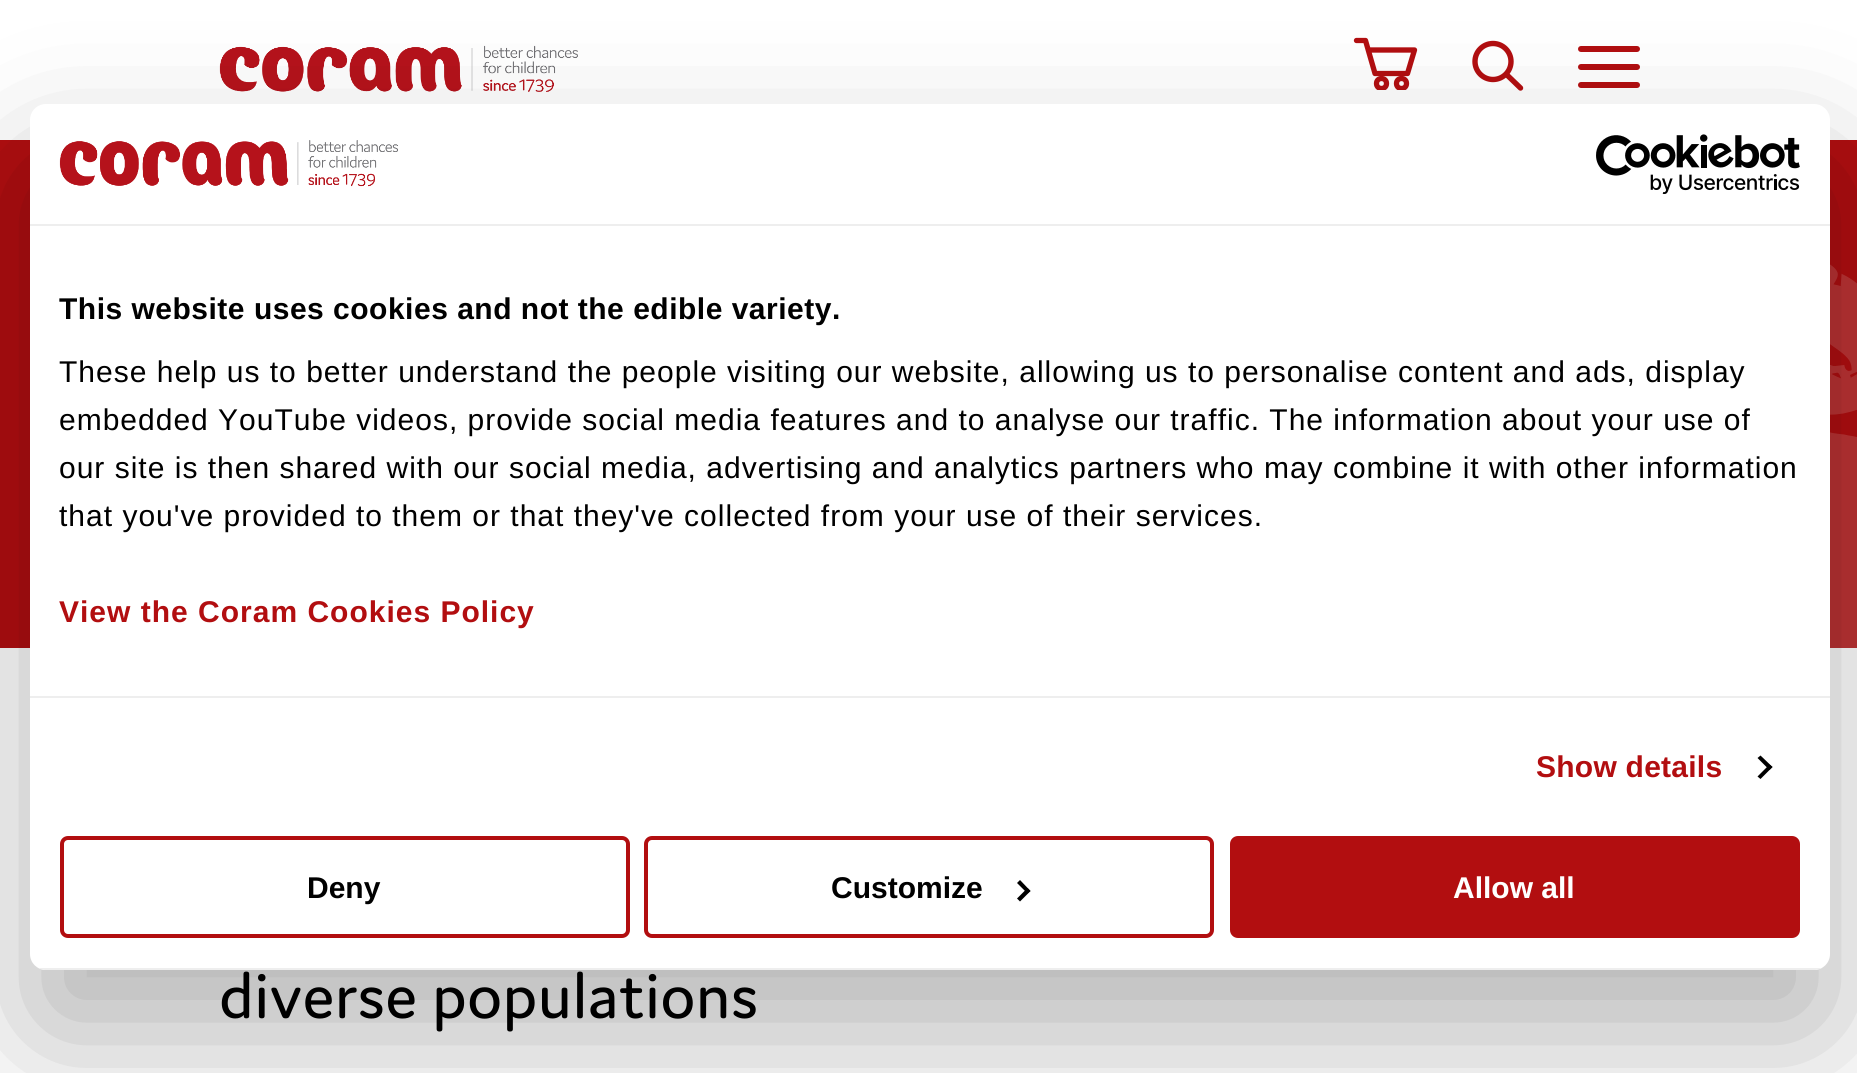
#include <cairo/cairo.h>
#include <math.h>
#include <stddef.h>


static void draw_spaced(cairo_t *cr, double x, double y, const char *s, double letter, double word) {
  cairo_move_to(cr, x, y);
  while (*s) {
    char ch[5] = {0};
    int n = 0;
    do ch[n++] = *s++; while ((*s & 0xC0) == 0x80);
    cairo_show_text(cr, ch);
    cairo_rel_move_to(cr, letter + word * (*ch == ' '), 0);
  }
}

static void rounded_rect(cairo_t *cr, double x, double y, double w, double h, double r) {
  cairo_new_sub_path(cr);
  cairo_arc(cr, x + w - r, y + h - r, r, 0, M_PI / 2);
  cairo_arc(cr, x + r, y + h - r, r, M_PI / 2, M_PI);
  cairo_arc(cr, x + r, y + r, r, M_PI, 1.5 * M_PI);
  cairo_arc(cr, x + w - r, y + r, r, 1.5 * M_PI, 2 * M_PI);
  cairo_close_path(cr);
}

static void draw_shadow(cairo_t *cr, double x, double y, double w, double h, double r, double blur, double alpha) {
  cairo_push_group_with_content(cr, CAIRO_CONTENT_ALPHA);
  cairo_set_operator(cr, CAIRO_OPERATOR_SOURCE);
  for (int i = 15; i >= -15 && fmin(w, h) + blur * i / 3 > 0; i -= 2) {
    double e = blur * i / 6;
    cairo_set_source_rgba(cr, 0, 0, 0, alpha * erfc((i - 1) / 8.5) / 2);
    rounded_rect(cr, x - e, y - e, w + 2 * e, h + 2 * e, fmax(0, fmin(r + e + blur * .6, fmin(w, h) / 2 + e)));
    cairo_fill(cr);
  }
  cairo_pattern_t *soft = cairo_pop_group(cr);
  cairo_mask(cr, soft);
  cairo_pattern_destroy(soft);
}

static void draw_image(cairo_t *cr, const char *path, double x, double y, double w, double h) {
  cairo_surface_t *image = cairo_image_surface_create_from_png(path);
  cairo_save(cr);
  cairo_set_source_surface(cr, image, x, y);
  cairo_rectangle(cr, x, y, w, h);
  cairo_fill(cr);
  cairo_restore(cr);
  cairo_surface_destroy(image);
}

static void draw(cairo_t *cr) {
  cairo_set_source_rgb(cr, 1, 1, 1);
  cairo_paint(cr);
  draw_image(cr, "images/3.png", 219, 45, 359, 47);
  cairo_new_path(cr);
  cairo_move_to(cr, 1356.5, 40.5);
  cairo_line_to(cr, 1365.5, 40.5);
  cairo_line_to(cr, 1375, 73.5);
  cairo_line_to(cr, 1407.5, 73.5);
  cairo_line_to(cr, 1414.5, 50);
  cairo_line_to(cr, 1370, 50);
  cairo_set_source_rgb(cr, 178 / 255.0, 14 / 255.0, 16 / 255.0);
  cairo_set_line_width(cr, 5.3);
  cairo_set_line_cap(cr, CAIRO_LINE_CAP_ROUND);
  cairo_set_line_join(cr, CAIRO_LINE_JOIN_ROUND);
  cairo_stroke(cr);
  cairo_save(cr);
  cairo_rectangle(cr, 1352, 36, 66, 54);
  cairo_clip(cr);
  cairo_arc(cr, 1381.5, 83.5, 5, 0, 2 * M_PI);
  cairo_set_line_cap(cr, CAIRO_LINE_CAP_BUTT);
  cairo_set_line_join(cr, CAIRO_LINE_JOIN_MITER);
  cairo_stroke(cr);
  cairo_arc(cr, 1401.5, 83.5, 5, 0, 2 * M_PI);
  cairo_stroke(cr);
  cairo_restore(cr);
  cairo_arc(cr, 1493, 61.5, 18, 0, 2 * M_PI);
  cairo_set_line_width(cr, 5.4);
  cairo_set_line_cap(cr, CAIRO_LINE_CAP_BUTT);
  cairo_set_line_join(cr, CAIRO_LINE_JOIN_MITER);
  cairo_stroke(cr);
  cairo_new_path(cr);
  cairo_move_to(cr, 1506.5, 74.5);
  cairo_line_to(cr, 1520.5, 88);
  cairo_set_line_cap(cr, CAIRO_LINE_CAP_ROUND);
  cairo_stroke(cr);
  rounded_rect(cr, 1578, 46, 62, 6, 3);
  cairo_fill(cr);
  rounded_rect(cr, 1578, 64, 62, 6, 3);
  cairo_fill(cr);
  rounded_rect(cr, 1578, 82, 62, 6, 3);
  cairo_fill(cr);
  cairo_rectangle(cr, 0, 140, 1857, 508);
  cairo_fill(cr);
  draw_image(cr, "images/4.png", 1830, 264, 27, 384);
  cairo_set_source_rgb(cr, 0, 0, 0);
  draw_shadow(cr, 30, 168, 1800, 866, 16, 68, 0.3);
  cairo_set_source_rgb(cr, 1, 1, 1);
  rounded_rect(cr, 30, 104, 1800, 866, 16);
  cairo_fill(cr);
  cairo_set_source_rgb(cr, 238 / 255.0, 238 / 255.0, 238 / 255.0);
  cairo_rectangle(cr, 30, 224, 1800, 2);
  cairo_fill(cr);
  draw_image(cr, "images/1.png", 59, 140, 339, 47);
  draw_image(cr, "images/2.png", 1596, 134, 204, 60);
  cairo_rectangle(cr, 30, 696, 1800, 2);
  cairo_fill(cr);
  cairo_set_source_rgb(cr, 0, 0, 0);
  cairo_new_path(cr);
  cairo_move_to(cr, 1760.5, 755.5);
  cairo_line_to(cr, 1772.5, 767);
  cairo_line_to(cr, 1769.5, 770);
  cairo_line_to(cr, 1757.5, 758);
  cairo_close_path(cr);
  cairo_fill(cr);
  cairo_new_path(cr);
  cairo_move_to(cr, 1769.5, 764.5);
  cairo_line_to(cr, 1772.5, 767);
  cairo_line_to(cr, 1760.5, 779);
  cairo_line_to(cr, 1757.5, 776.5);
  cairo_close_path(cr);
  cairo_fill(cr);
  cairo_save(cr);
  rounded_rect(cr, 30, 104, 1800, 866, 16);
  cairo_clip(cr);
  cairo_set_source_rgb(cr, 238 / 255.0, 238 / 255.0, 238 / 255.0);
  cairo_rectangle(cr, 30, 968, 1800, 2);
  cairo_fill(cr);
  cairo_restore(cr);
  rounded_rect(cr, 62, 838, 566, 98, 6);
  cairo_set_source_rgb(cr, 178 / 255.0, 14 / 255.0, 16 / 255.0);
  cairo_set_line_width(cr, 4);
  cairo_set_line_cap(cr, CAIRO_LINE_CAP_BUTT);
  cairo_stroke(cr);
  rounded_rect(cr, 646, 838, 566, 98, 6);
  cairo_stroke(cr);
  cairo_set_source_rgb(cr, 0, 0, 0);
  cairo_new_path(cr);
  cairo_move_to(cr, 1020, 880);
  cairo_line_to(cr, 1030.5, 891);
  cairo_line_to(cr, 1027.5, 893.5);
  cairo_line_to(cr, 1017, 883);
  cairo_close_path(cr);
  cairo_fill(cr);
  cairo_new_path(cr);
  cairo_move_to(cr, 1027.5, 888);
  cairo_line_to(cr, 1030.5, 891);
  cairo_line_to(cr, 1020, 901.5);
  cairo_line_to(cr, 1017, 898.5);
  cairo_close_path(cr);
  cairo_fill(cr);
  cairo_set_source_rgb(cr, 178 / 255.0, 14 / 255.0, 16 / 255.0);
  rounded_rect(cr, 1232, 838, 566, 98, 6);
  cairo_fill_preserve(cr);
  cairo_stroke(cr);
  cairo_select_font_face(cr, "Liberation Sans", CAIRO_FONT_SLANT_NORMAL, CAIRO_FONT_WEIGHT_BOLD);
  cairo_set_font_size(cr, 30);
  cairo_set_source_rgb(cr, 0, 0, 0);
  draw_spaced(cr, 59, 319, "This website uses cookies and not the edible variety.", 0.5, 0);
  cairo_select_font_face(cr, "Liberation Sans", CAIRO_FONT_SLANT_NORMAL, CAIRO_FONT_WEIGHT_NORMAL);
  draw_spaced(cr, 59, 382, "These help us to better understand the people visiting our website, allowing us to personalise content and ads, display", 1, 0);
  draw_spaced(cr, 59, 430, "embedded YouTube videos, provide social media features and to analyse our traffic. The information about your use of", 1, 0);
  draw_spaced(cr, 59, 478, "our site is then shared with our social media, advertising and analytics partners who may combine it with other information", 1, 0);
  draw_spaced(cr, 59, 526, "that you've provided to them or that they've collected from your use of their services.", 1, 0);
  cairo_select_font_face(cr, "Liberation Sans", CAIRO_FONT_SLANT_NORMAL, CAIRO_FONT_WEIGHT_BOLD);
  cairo_set_source_rgb(cr, 178 / 255.0, 14 / 255.0, 16 / 255.0);
  draw_spaced(cr, 59, 622, "View the Coram Cookies Policy", 1, 0);
  draw_spaced(cr, 1536, 777, "Show details", 0.25, 0);
  cairo_set_source_rgb(cr, 0, 0, 0);
  cairo_move_to(cr, 307, 898);
  cairo_show_text(cr, "Deny");
  cairo_move_to(cr, 831, 898);
  cairo_show_text(cr, "Customize");
  cairo_set_source_rgb(cr, 1, 1, 1);
  cairo_move_to(cr, 1453, 898);
  cairo_show_text(cr, "Allow all");
  cairo_select_font_face(cr, "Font", CAIRO_FONT_SLANT_NORMAL, CAIRO_FONT_WEIGHT_NORMAL);
  cairo_set_font_size(cr, 68);
  cairo_set_source_rgb(cr, 0, 0, 0);
  cairo_move_to(cr, 219, 1018);
  cairo_show_text(cr, "diverse populations");
}

int main(void) {
  cairo_surface_t *surface = cairo_image_surface_create(CAIRO_FORMAT_RGB24, 1857, 1073);
  cairo_t *cr = cairo_create(surface);
  cairo_font_options_t *options = cairo_font_options_create();
  cairo_font_options_set_hint_metrics(options, CAIRO_HINT_METRICS_OFF);
  cairo_font_options_set_hint_style(options, CAIRO_HINT_STYLE_NONE);
  cairo_set_font_options(cr, options);
  cairo_set_miter_limit(cr, 4);
  draw(cr);
  cairo_surface_write_to_png(surface, "out.png");
  cairo_font_options_destroy(options);
  cairo_destroy(cr);
  cairo_surface_destroy(surface);
  return 0;
}
